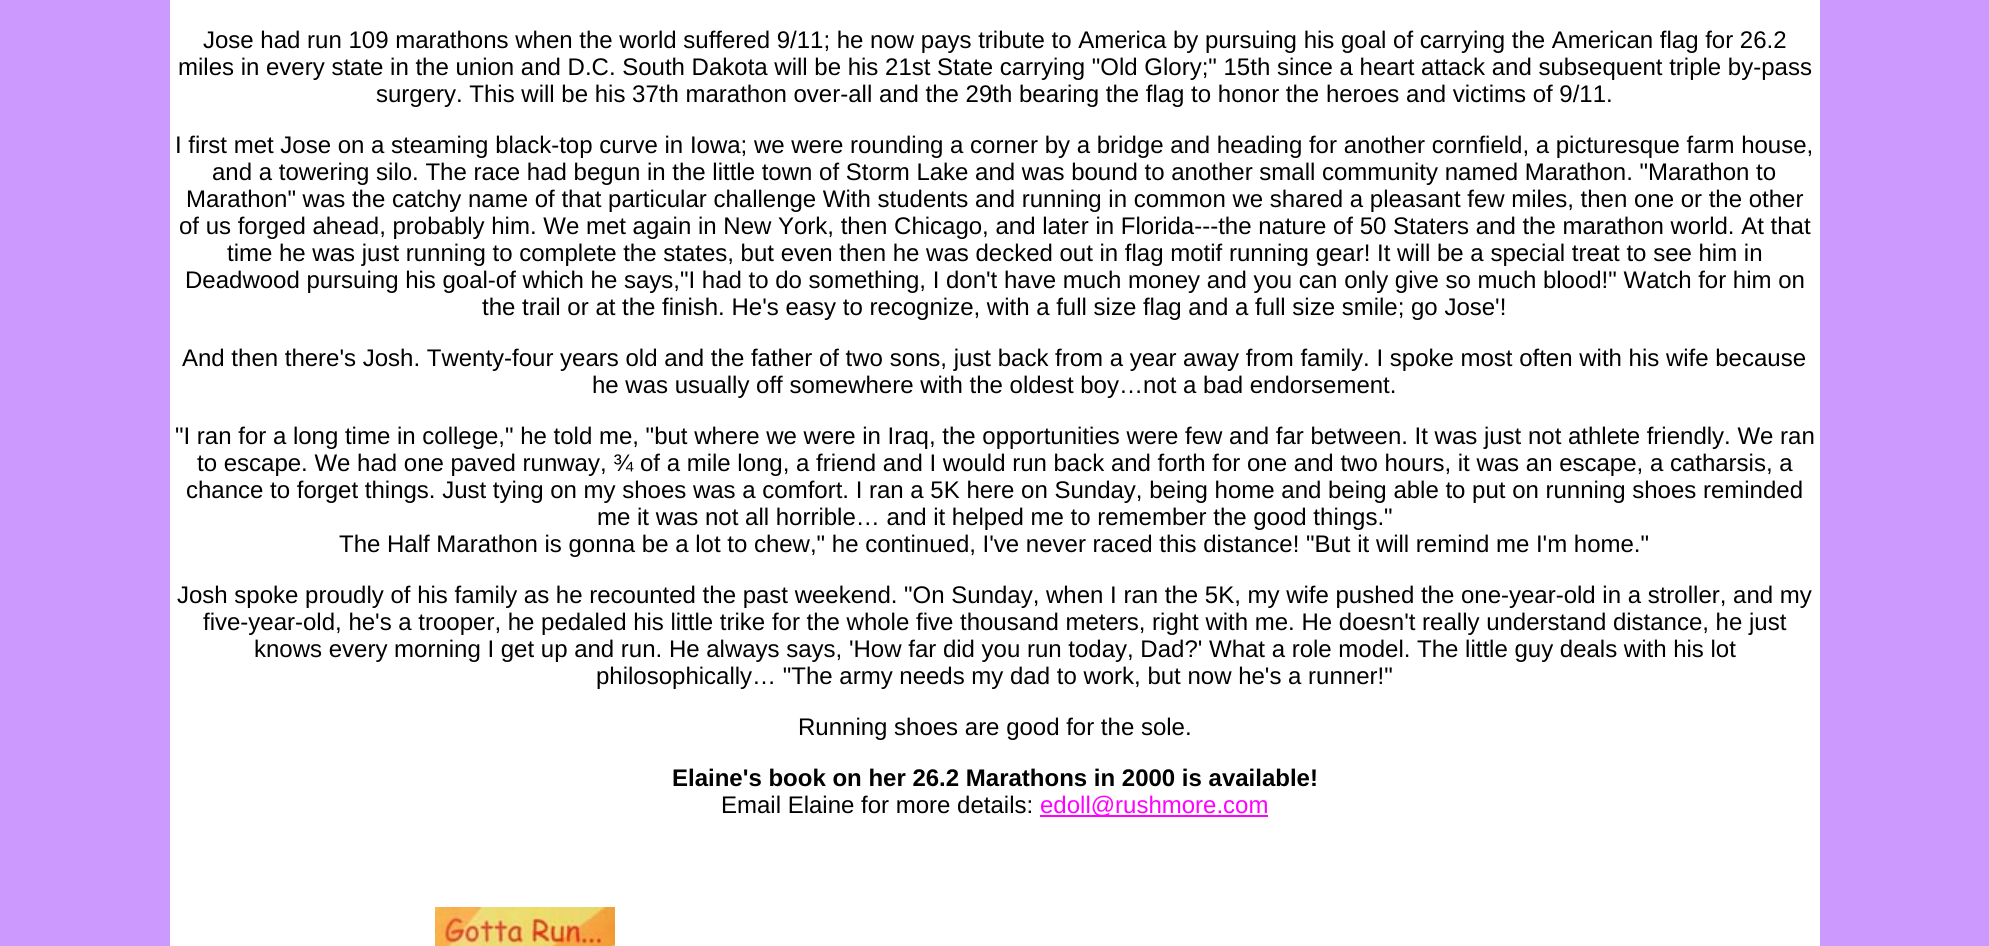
#include <cairo/cairo.h>
#include <math.h>
#include <stddef.h>


static void draw_image(cairo_t *cr, const char *path, double x, double y, double w, double h) {
  cairo_surface_t *image = cairo_image_surface_create_from_png(path);
  cairo_save(cr);
  cairo_set_source_surface(cr, image, x, y);
  cairo_rectangle(cr, x, y, w, h);
  cairo_fill(cr);
  cairo_restore(cr);
  cairo_surface_destroy(image);
}

static void draw(cairo_t *cr) {
  cairo_set_source_rgb(cr, 204 / 255.0, 153 / 255.0, 1);
  cairo_paint(cr);
  cairo_set_source_rgb(cr, 1, 1, 1);
  cairo_rectangle(cr, 170, 0, 1650, 946);
  cairo_fill(cr);
  cairo_set_source_rgb(cr, 1, 0, 1);
  cairo_rectangle(cr, 1040, 815, 228, 2);
  cairo_fill(cr);
  draw_image(cr, "images/1.png", 435, 907, 180, 39);
  cairo_select_font_face(cr, "Liberation Sans", CAIRO_FONT_SLANT_NORMAL, CAIRO_FONT_WEIGHT_NORMAL);
  cairo_set_font_size(cr, 24);
  cairo_set_source_rgb(cr, 0, 0, 0);
  cairo_move_to(cr, 203, 48);
  cairo_show_text(cr, "Jose had run 109 marathons when the world suffered 9/11; he now pays tribute to America by pursuing his goal of carrying the American flag for 26.2");
  cairo_move_to(cr, 178, 75);
  cairo_show_text(cr, "miles in every state in the union and D.C. South Dakota will be his 21st State carrying \"Old Glory;\" 15th since a heart attack and subsequent triple by-pass");
  cairo_move_to(cr, 376, 102);
  cairo_show_text(cr, "surgery. This will be his 37th marathon over-all and the 29th bearing the flag to honor the heroes and victims of 9/11.");
  cairo_move_to(cr, 175, 153);
  cairo_show_text(cr, "I first met Jose on a steaming black-top curve in Iowa; we were rounding a corner by a bridge and heading for another cornfield, a picturesque farm house,");
  cairo_move_to(cr, 212, 180);
  cairo_show_text(cr, "and a towering silo. The race had begun in the little town of Storm Lake and was bound to another small community named Marathon. \"Marathon to");
  cairo_move_to(cr, 186, 207);
  cairo_show_text(cr, "Marathon\" was the catchy name of that particular challenge With students and running in common we shared a pleasant few miles, then one or the other");
  cairo_move_to(cr, 179, 234);
  cairo_show_text(cr, "of us forged ahead, probably him. We met again in New York, then Chicago, and later in Florida---the nature of 50 Staters and the marathon world. At that");
  cairo_move_to(cr, 227, 261);
  cairo_show_text(cr, "time he was just running to complete the states, but even then he was decked out in flag motif running gear! It will be a special treat to see him in");
  cairo_move_to(cr, 185, 288);
  cairo_show_text(cr, "Deadwood pursuing his goal-of which he says,\"I had to do something, I don't have much money and you can only give so much blood!\" Watch for him on");
  cairo_move_to(cr, 482, 315);
  cairo_show_text(cr, "the trail or at the finish. He's easy to recognize, with a full size flag and a full size smile; go Jose'!");
  cairo_move_to(cr, 182, 366);
  cairo_show_text(cr, "And then there's Josh. Twenty-four years old and the father of two sons, just back from a year away from family. I spoke most often with his wife because");
  cairo_move_to(cr, 592, 393);
  cairo_show_text(cr, "he was usually off somewhere with the oldest boy…not a bad endorsement.");
  cairo_move_to(cr, 175, 444);
  cairo_show_text(cr, "\"I ran for a long time in college,\" he told me, \"but where we were in Iraq, the opportunities were few and far between. It was just not athlete friendly. We ran");
  cairo_move_to(cr, 197, 471);
  cairo_show_text(cr, "to escape. We had one paved runway, ¾ of a mile long, a friend and I would run back and forth for one and two hours, it was an escape, a catharsis, a");
  cairo_move_to(cr, 186, 498);
  cairo_show_text(cr, "chance to forget things. Just tying on my shoes was a comfort. I ran a 5K here on Sunday, being home and being able to put on running shoes reminded");
  cairo_move_to(cr, 597, 525);
  cairo_show_text(cr, "me it was not all horrible… and it helped me to remember the good things.\"");
  cairo_move_to(cr, 339, 552);
  cairo_show_text(cr, "The Half Marathon is gonna be a lot to chew,\" he continued, I've never raced this distance! \"But it will remind me I'm home.\"");
  cairo_move_to(cr, 177, 603);
  cairo_show_text(cr, "Josh spoke proudly of his family as he recounted the past weekend. \"On Sunday, when I ran the 5K, my wife pushed the one-year-old in a stroller, and my");
  cairo_move_to(cr, 203, 630);
  cairo_show_text(cr, "five-year-old, he's a trooper, he pedaled his little trike for the whole five thousand meters, right with me. He doesn't really understand distance, he just");
  cairo_move_to(cr, 254, 657);
  cairo_show_text(cr, "knows every morning I get up and run. He always says, 'How far did you run today, Dad?' What a role model. The little guy deals with his lot");
  cairo_move_to(cr, 596, 684);
  cairo_show_text(cr, "philosophically… \"The army needs my dad to work, but now he's a runner!\"");
  cairo_move_to(cr, 798, 735);
  cairo_show_text(cr, "Running shoes are good for the sole.");
  cairo_select_font_face(cr, "Liberation Sans", CAIRO_FONT_SLANT_NORMAL, CAIRO_FONT_WEIGHT_BOLD);
  cairo_move_to(cr, 672, 786);
  cairo_show_text(cr, "Elaine's book on her 26.2 Marathons in 2000 is available!");
  cairo_select_font_face(cr, "Liberation Sans", CAIRO_FONT_SLANT_NORMAL, CAIRO_FONT_WEIGHT_NORMAL);
  cairo_move_to(cr, 721, 813);
  cairo_show_text(cr, "Email Elaine for more details:");
  cairo_set_source_rgb(cr, 1, 0, 1);
  cairo_move_to(cr, 1040, 813);
  cairo_show_text(cr, "edoll@rushmore.com");
}

int main(void) {
  cairo_surface_t *surface = cairo_image_surface_create(CAIRO_FORMAT_RGB24, 1989, 946);
  cairo_t *cr = cairo_create(surface);
  cairo_font_options_t *options = cairo_font_options_create();
  cairo_font_options_set_hint_metrics(options, CAIRO_HINT_METRICS_OFF);
  cairo_font_options_set_hint_style(options, CAIRO_HINT_STYLE_NONE);
  cairo_set_font_options(cr, options);
  cairo_set_miter_limit(cr, 4);
  draw(cr);
  cairo_surface_write_to_png(surface, "out.png");
  cairo_font_options_destroy(options);
  cairo_destroy(cr);
  cairo_surface_destroy(surface);
  return 0;
}
